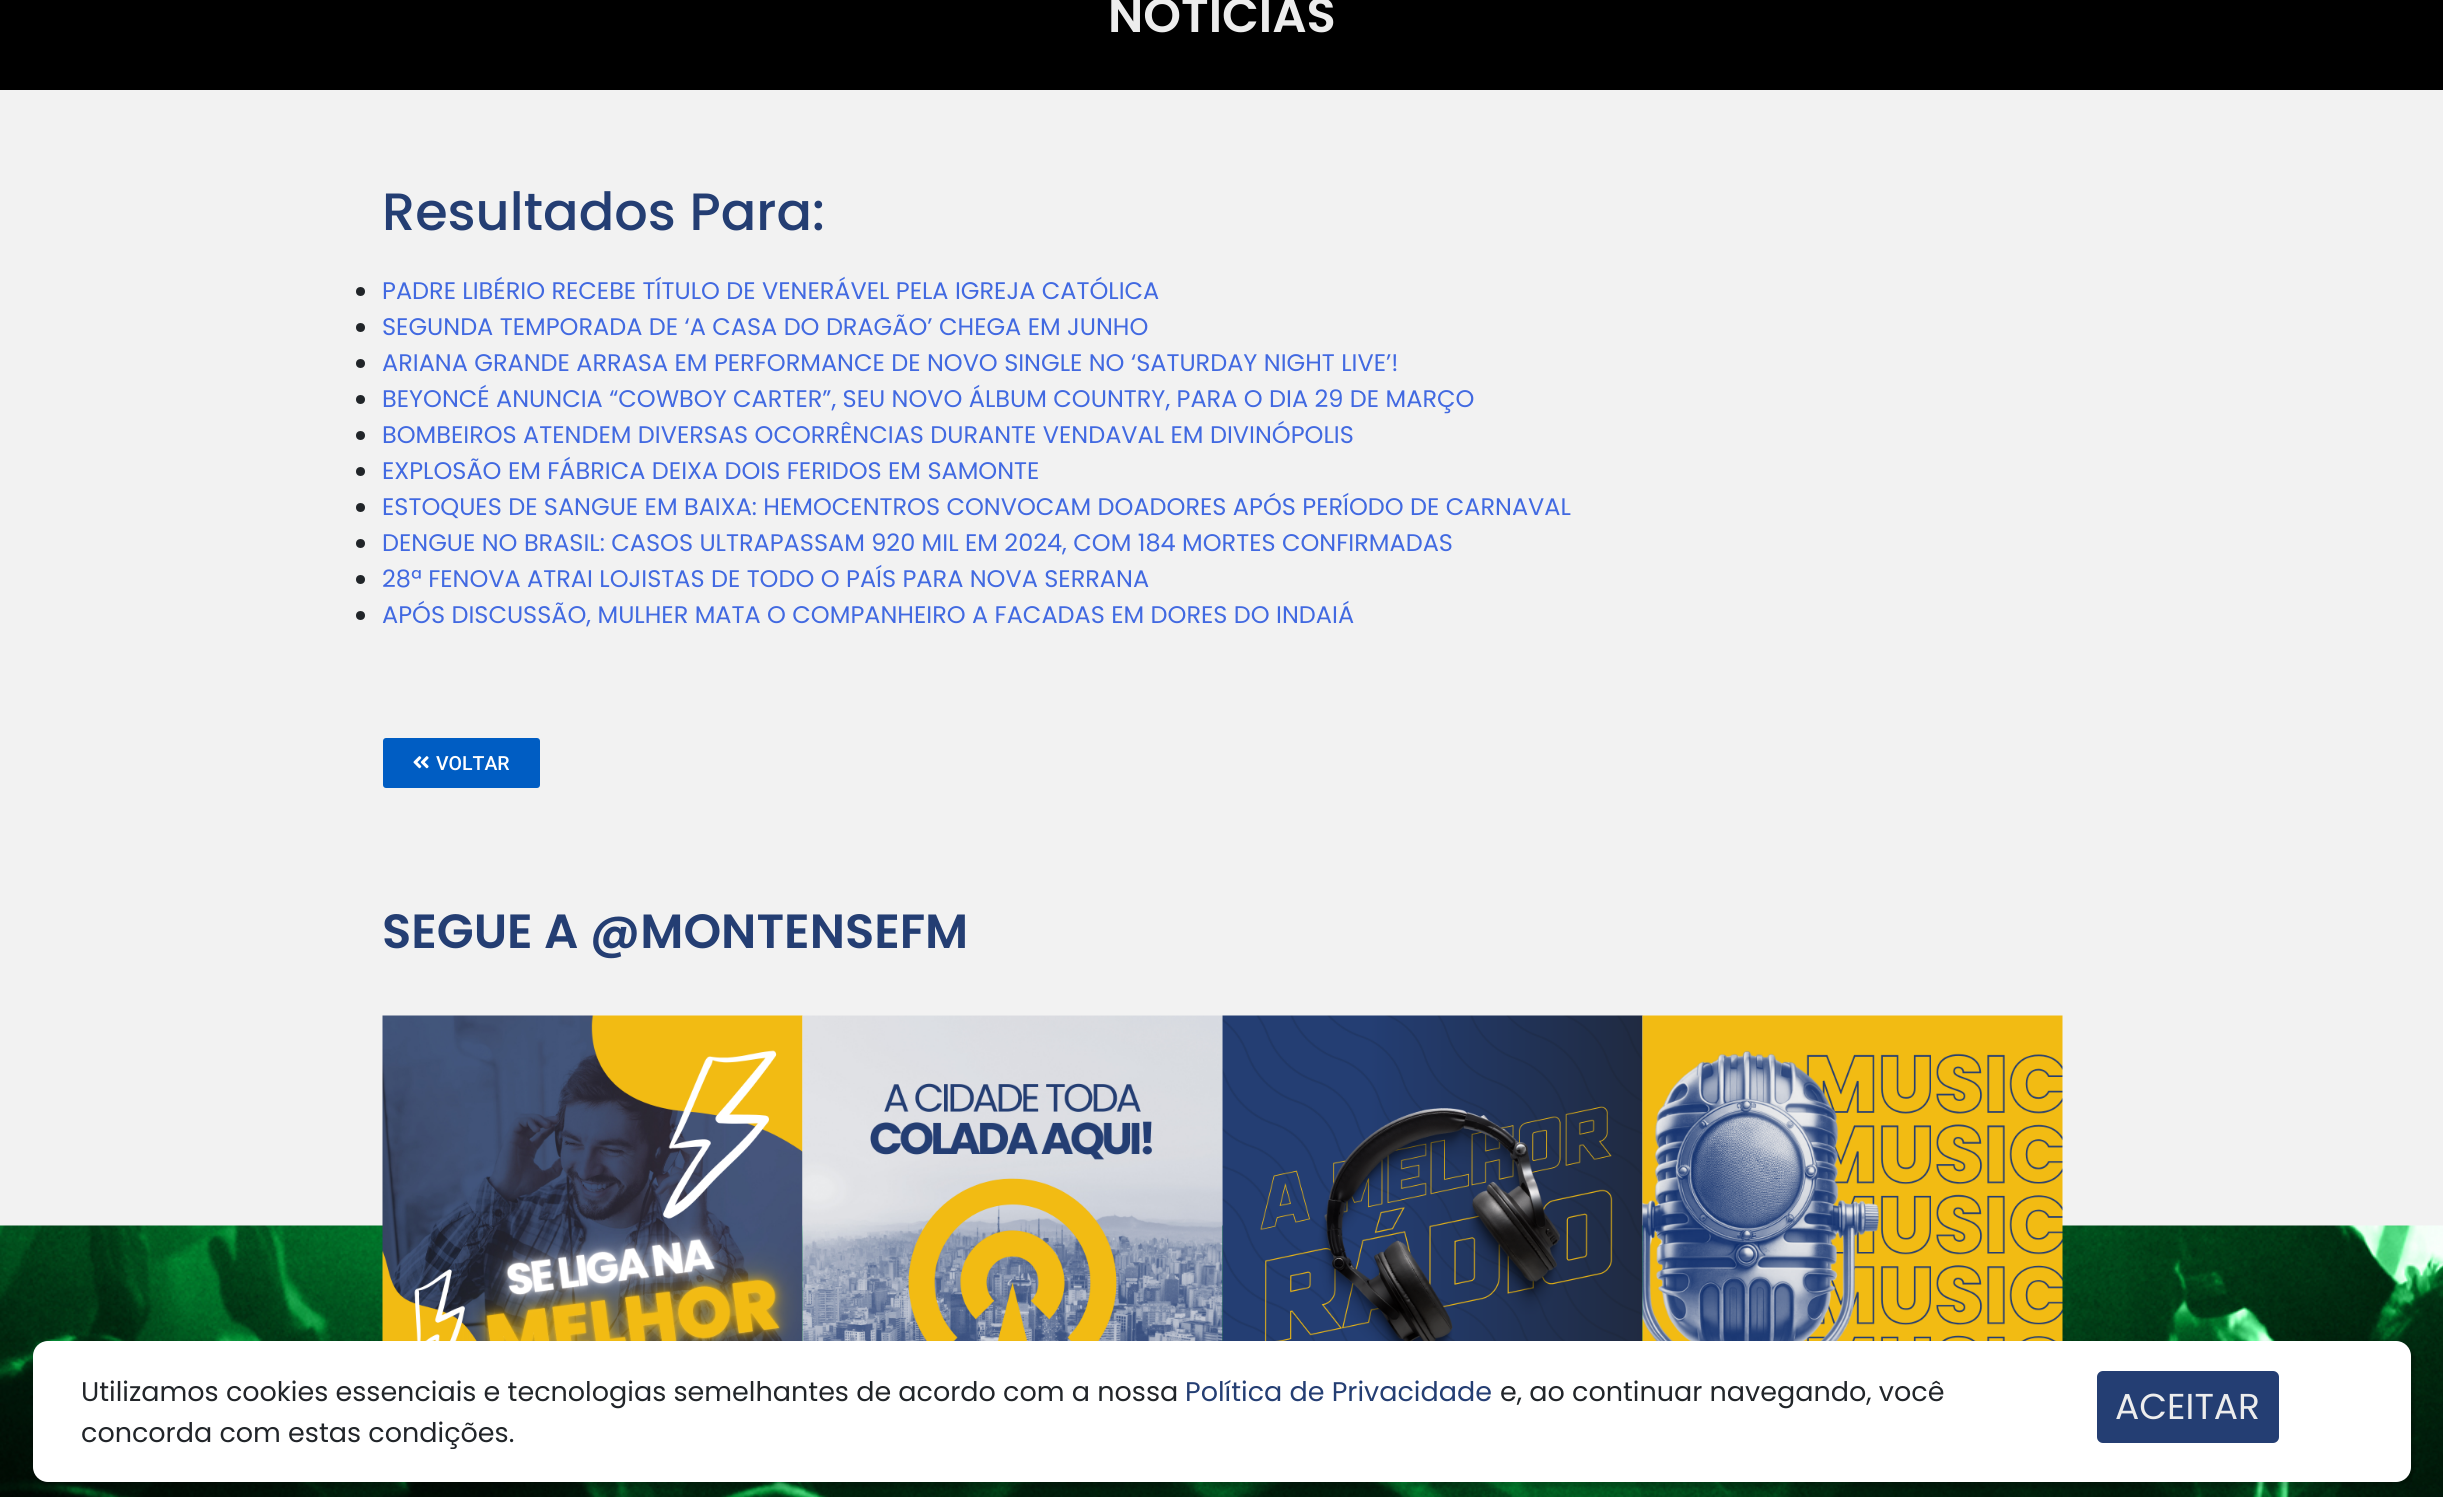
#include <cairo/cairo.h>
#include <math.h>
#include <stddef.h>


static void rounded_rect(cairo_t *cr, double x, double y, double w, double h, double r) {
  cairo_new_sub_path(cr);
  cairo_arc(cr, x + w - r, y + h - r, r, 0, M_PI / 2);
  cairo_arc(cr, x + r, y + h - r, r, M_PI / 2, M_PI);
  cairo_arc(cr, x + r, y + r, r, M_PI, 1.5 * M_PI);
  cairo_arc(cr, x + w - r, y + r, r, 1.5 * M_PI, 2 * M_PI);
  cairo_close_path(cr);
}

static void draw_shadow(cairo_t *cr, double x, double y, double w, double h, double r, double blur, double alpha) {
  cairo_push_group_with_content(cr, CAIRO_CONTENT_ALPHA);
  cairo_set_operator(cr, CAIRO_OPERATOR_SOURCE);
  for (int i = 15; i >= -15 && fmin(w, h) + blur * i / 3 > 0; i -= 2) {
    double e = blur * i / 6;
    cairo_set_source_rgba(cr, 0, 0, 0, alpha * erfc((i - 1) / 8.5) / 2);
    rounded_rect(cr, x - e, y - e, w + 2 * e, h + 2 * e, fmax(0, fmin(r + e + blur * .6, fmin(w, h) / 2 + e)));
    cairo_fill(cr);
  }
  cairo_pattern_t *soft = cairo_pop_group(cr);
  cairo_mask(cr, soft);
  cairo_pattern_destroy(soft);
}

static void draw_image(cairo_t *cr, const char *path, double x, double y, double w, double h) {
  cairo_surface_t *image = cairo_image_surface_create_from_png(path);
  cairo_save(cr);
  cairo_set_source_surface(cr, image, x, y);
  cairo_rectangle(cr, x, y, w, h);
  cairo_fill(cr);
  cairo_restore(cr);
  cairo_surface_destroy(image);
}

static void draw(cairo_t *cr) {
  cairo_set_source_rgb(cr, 242 / 255.0, 242 / 255.0, 242 / 255.0);
  cairo_paint(cr);
  cairo_set_source_rgb(cr, 0, 0, 0);
  cairo_rectangle(cr, 0, 0, 2443, 90);
  cairo_fill(cr);
  cairo_set_source_rgb(cr, 33 / 255.0, 37 / 255.0, 41 / 255.0);
  cairo_arc(cr, 360.5, 291.5, 4.5, 0, 2 * M_PI);
  cairo_fill(cr);
  cairo_arc(cr, 360.5, 327.5, 4.5, 0, 2 * M_PI);
  cairo_fill(cr);
  cairo_arc(cr, 360.5, 363.5, 4.5, 0, 2 * M_PI);
  cairo_fill(cr);
  cairo_arc(cr, 360.5, 399.5, 4.5, 0, 2 * M_PI);
  cairo_fill(cr);
  cairo_arc(cr, 360.5, 435.5, 4.5, 0, 2 * M_PI);
  cairo_fill(cr);
  cairo_arc(cr, 360.5, 471.5, 4.5, 0, 2 * M_PI);
  cairo_fill(cr);
  cairo_arc(cr, 360.5, 507.5, 4.5, 0, 2 * M_PI);
  cairo_fill(cr);
  cairo_arc(cr, 360.5, 543.5, 4.5, 0, 2 * M_PI);
  cairo_fill(cr);
  cairo_arc(cr, 360.5, 579.5, 4.5, 0, 2 * M_PI);
  cairo_fill(cr);
  cairo_arc(cr, 360.5, 615.5, 4.5, 0, 2 * M_PI);
  cairo_fill(cr);
  cairo_set_source_rgb(cr, 0, 93 / 255.0, 195 / 255.0);
  rounded_rect(cr, 383, 738, 157, 50, 3);
  cairo_fill(cr);
  draw_image(cr, "images/1.png", 413, 756, 16, 13);
  draw_image(cr, "images/6.png", 0, 1225, 2443, 272);
  draw_image(cr, "images/2.png", 382, 1015, 421, 326);
  draw_image(cr, "images/3.png", 802, 1015, 421, 326);
  draw_image(cr, "images/4.png", 1222, 1015, 421, 326);
  draw_image(cr, "images/5.png", 1642, 1015, 421, 326);
  cairo_set_source_rgb(cr, 0, 0, 0);
  draw_shadow(cr, 35, 1343, 2380, 144, 17, 1.5, 0.2);
  cairo_set_source_rgb(cr, 1, 1, 1);
  rounded_rect(cr, 33, 1341, 2378, 141, 15);
  cairo_fill(cr);
  cairo_set_source_rgb(cr, 36 / 255.0, 62 / 255.0, 115 / 255.0);
  rounded_rect(cr, 2097, 1371, 182, 72, 6);
  cairo_fill(cr);
  cairo_select_font_face(cr, "Poppins SemiBold", CAIRO_FONT_SLANT_NORMAL, CAIRO_FONT_WEIGHT_NORMAL);
  cairo_set_font_size(cr, 48);
  cairo_set_source_rgb(cr, 237 / 255.0, 237 / 255.0, 237 / 255.0);
  cairo_move_to(cr, 1108, 32);
  cairo_show_text(cr, "NOTÍCIAS");
  cairo_select_font_face(cr, "Poppins Medium", CAIRO_FONT_SLANT_NORMAL, CAIRO_FONT_WEIGHT_NORMAL);
  cairo_set_font_size(cr, 52.5);
  cairo_set_source_rgb(cr, 36 / 255.0, 62 / 255.0, 115 / 255.0);
  cairo_move_to(cr, 382, 230);
  cairo_show_text(cr, "Resultados Para:");
  cairo_select_font_face(cr, "Poppins", CAIRO_FONT_SLANT_NORMAL, CAIRO_FONT_WEIGHT_NORMAL);
  cairo_set_font_size(cr, 24);
  cairo_set_source_rgb(cr, 65 / 255.0, 105 / 255.0, 225 / 255.0);
  cairo_move_to(cr, 382, 299);
  cairo_show_text(cr, "PADRE LIBÉRIO RECEBE TÍTULO DE VENERÁVEL PELA IGREJA CATÓLICA");
  cairo_move_to(cr, 382, 335);
  cairo_show_text(cr, "SEGUNDA TEMPORADA DE ‘A CASA DO DRAGÃO’ CHEGA EM JUNHO");
  cairo_move_to(cr, 382, 371);
  cairo_show_text(cr, "ARIANA GRANDE ARRASA EM PERFORMANCE DE NOVO SINGLE NO ‘SATURDAY NIGHT LIVE’!");
  cairo_move_to(cr, 382, 407);
  cairo_show_text(cr, "BEYONCÉ ANUNCIA “COWBOY CARTER”, SEU NOVO ÁLBUM COUNTRY, PARA O DIA 29 DE MARÇO");
  cairo_move_to(cr, 382, 443);
  cairo_show_text(cr, "BOMBEIROS ATENDEM DIVERSAS OCORRÊNCIAS DURANTE VENDAVAL EM DIVINÓPOLIS");
  cairo_move_to(cr, 382, 479);
  cairo_show_text(cr, "EXPLOSÃO EM FÁBRICA DEIXA DOIS FERIDOS EM SAMONTE");
  cairo_move_to(cr, 382, 515);
  cairo_show_text(cr, "ESTOQUES DE SANGUE EM BAIXA: HEMOCENTROS CONVOCAM DOADORES APÓS PERÍODO DE CARNAVAL");
  cairo_move_to(cr, 382, 551);
  cairo_show_text(cr, "DENGUE NO BRASIL: CASOS ULTRAPASSAM 920 MIL EM 2024, COM 184 MORTES CONFIRMADAS");
  cairo_move_to(cr, 382, 587);
  cairo_show_text(cr, "28ª FENOVA ATRAI LOJISTAS DE TODO O PAÍS PARA NOVA SERRANA");
  cairo_move_to(cr, 382, 623);
  cairo_show_text(cr, "APÓS DISCUSSÃO, MULHER MATA O COMPANHEIRO A FACADAS EM DORES DO INDAIÁ");
  cairo_select_font_face(cr, "Roboto Medium", CAIRO_FONT_SLANT_NORMAL, CAIRO_FONT_WEIGHT_NORMAL);
  cairo_set_font_size(cr, 19.5);
  cairo_set_source_rgb(cr, 1, 1, 1);
  cairo_move_to(cr, 436, 770);
  cairo_show_text(cr, "VOLTAR");
  cairo_select_font_face(cr, "Poppins SemiBold", CAIRO_FONT_SLANT_NORMAL, CAIRO_FONT_WEIGHT_NORMAL);
  cairo_set_font_size(cr, 48);
  cairo_set_source_rgb(cr, 36 / 255.0, 62 / 255.0, 115 / 255.0);
  cairo_move_to(cr, 382, 948);
  cairo_show_text(cr, "SEGUE A @MONTENSEFM");
  cairo_select_font_face(cr, "Poppins", CAIRO_FONT_SLANT_NORMAL, CAIRO_FONT_WEIGHT_NORMAL);
  cairo_set_font_size(cr, 27);
  cairo_set_source_rgb(cr, 33 / 255.0, 37 / 255.0, 41 / 255.0);
  cairo_move_to(cr, 81, 1401);
  cairo_show_text(cr, "Utilizamos cookies essenciais e tecnologias semelhantes de acordo com a nossa");
  cairo_set_source_rgb(cr, 36 / 255.0, 62 / 255.0, 115 / 255.0);
  cairo_move_to(cr, 1185, 1401);
  cairo_show_text(cr, "Política de Privacidade");
  cairo_set_source_rgb(cr, 33 / 255.0, 37 / 255.0, 41 / 255.0);
  cairo_move_to(cr, 1500, 1401);
  cairo_show_text(cr, "e, ao continuar navegando, você");
  cairo_move_to(cr, 81, 1442);
  cairo_show_text(cr, "concorda com estas condições.");
  cairo_set_font_size(cr, 36);
  cairo_set_source_rgb(cr, 237 / 255.0, 237 / 255.0, 237 / 255.0);
  cairo_move_to(cr, 2115, 1419);
  cairo_show_text(cr, "ACEITAR");
}

int main(void) {
  cairo_surface_t *surface = cairo_image_surface_create(CAIRO_FORMAT_RGB24, 2443, 1497);
  cairo_t *cr = cairo_create(surface);
  cairo_font_options_t *options = cairo_font_options_create();
  cairo_font_options_set_hint_metrics(options, CAIRO_HINT_METRICS_OFF);
  cairo_font_options_set_hint_style(options, CAIRO_HINT_STYLE_NONE);
  cairo_set_font_options(cr, options);
  cairo_set_miter_limit(cr, 4);
  draw(cr);
  cairo_surface_write_to_png(surface, "out.png");
  cairo_font_options_destroy(options);
  cairo_destroy(cr);
  cairo_surface_destroy(surface);
  return 0;
}
